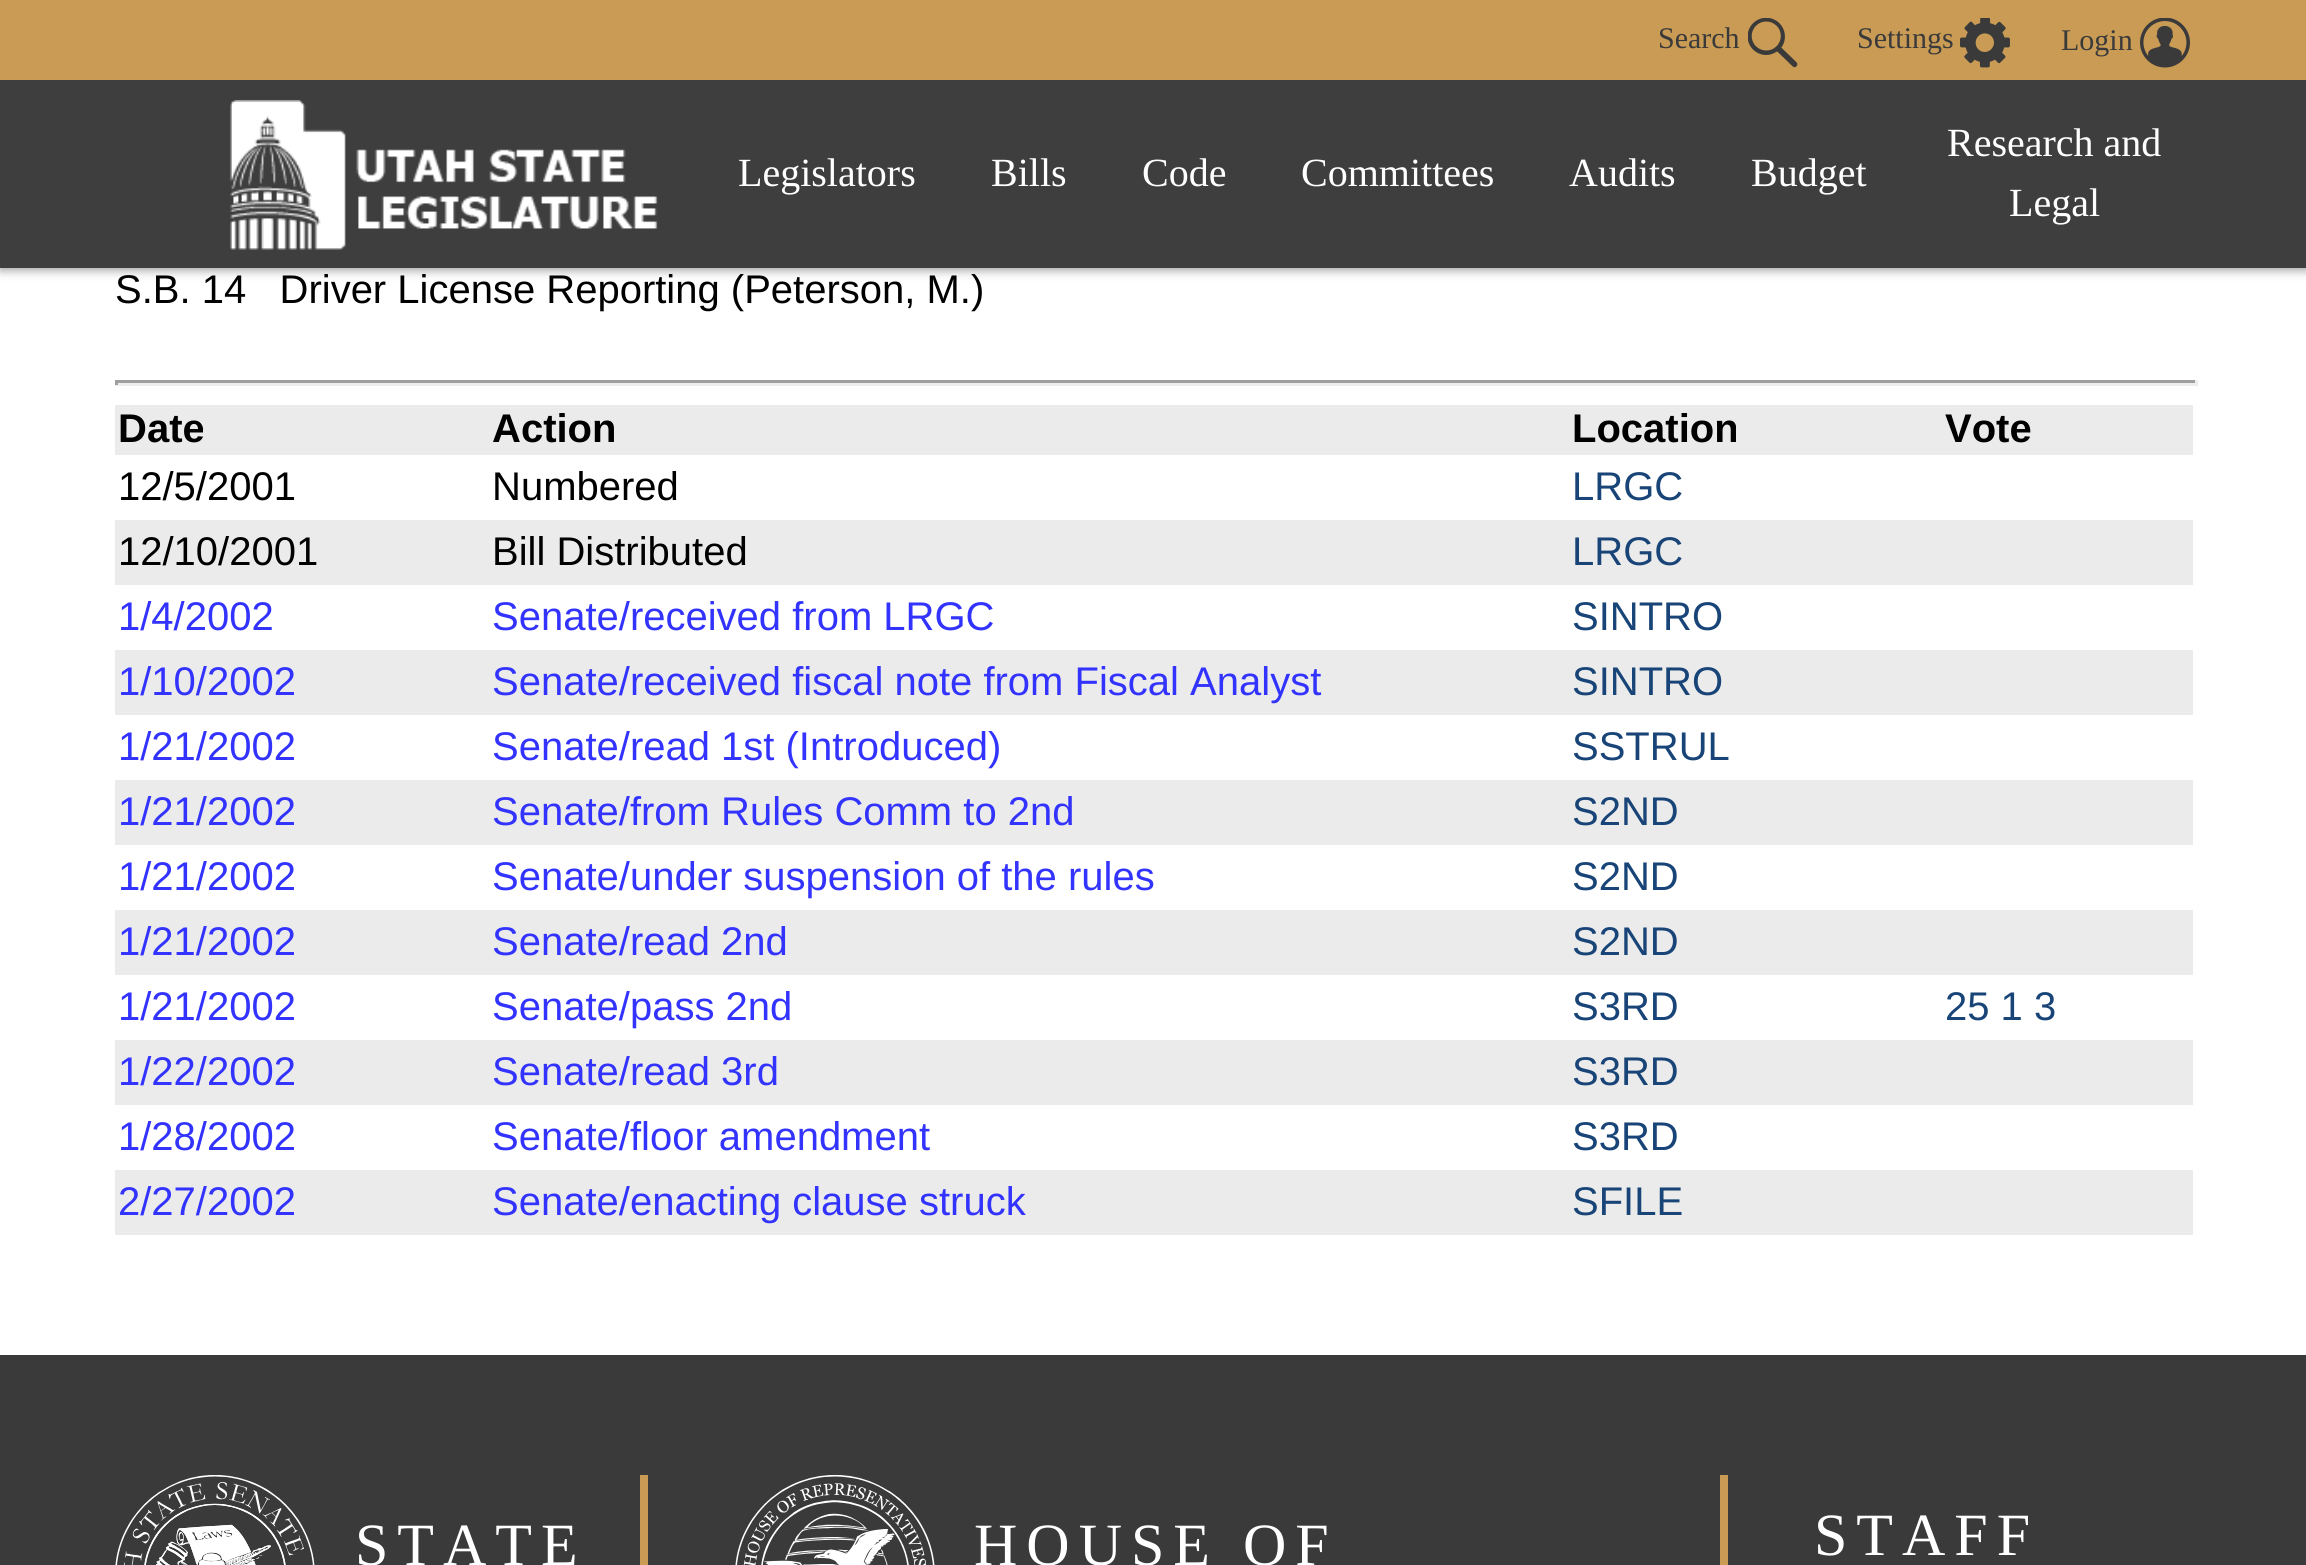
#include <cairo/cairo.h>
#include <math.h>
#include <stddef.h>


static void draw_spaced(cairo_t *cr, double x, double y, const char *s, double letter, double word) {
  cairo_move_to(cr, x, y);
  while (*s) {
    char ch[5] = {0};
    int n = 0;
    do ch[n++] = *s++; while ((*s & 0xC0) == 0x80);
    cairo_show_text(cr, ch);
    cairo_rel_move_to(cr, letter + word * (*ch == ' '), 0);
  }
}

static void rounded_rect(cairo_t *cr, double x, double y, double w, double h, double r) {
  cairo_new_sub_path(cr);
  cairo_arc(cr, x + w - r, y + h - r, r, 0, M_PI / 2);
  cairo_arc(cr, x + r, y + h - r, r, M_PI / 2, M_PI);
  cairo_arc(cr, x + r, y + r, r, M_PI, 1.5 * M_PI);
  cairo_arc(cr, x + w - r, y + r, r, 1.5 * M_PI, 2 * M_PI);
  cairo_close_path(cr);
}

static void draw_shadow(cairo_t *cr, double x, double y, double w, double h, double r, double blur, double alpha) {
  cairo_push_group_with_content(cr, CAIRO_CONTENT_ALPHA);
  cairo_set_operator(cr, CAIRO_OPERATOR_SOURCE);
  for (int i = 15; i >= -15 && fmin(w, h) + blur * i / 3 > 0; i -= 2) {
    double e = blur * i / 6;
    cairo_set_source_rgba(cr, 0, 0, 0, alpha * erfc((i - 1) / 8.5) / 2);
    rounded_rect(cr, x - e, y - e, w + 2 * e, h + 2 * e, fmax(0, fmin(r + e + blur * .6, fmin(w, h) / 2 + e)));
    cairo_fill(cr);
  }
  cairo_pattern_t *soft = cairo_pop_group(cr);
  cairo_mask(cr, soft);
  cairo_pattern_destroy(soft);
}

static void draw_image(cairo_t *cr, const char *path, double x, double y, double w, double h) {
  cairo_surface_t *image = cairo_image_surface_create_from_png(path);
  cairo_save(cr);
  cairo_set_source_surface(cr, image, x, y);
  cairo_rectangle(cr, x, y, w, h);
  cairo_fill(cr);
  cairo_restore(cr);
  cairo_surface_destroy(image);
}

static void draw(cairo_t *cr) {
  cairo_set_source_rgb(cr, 1, 1, 1);
  cairo_paint(cr);
  cairo_save(cr);
  cairo_set_fill_rule(cr, CAIRO_FILL_RULE_EVEN_ODD);
  cairo_new_path(cr);
  cairo_move_to(cr, 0, 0);
  cairo_line_to(cr, 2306, 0);
  cairo_line_to(cr, 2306, 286);
  cairo_line_to(cr, 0, 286);
  cairo_close_path(cr);
  cairo_move_to(cr, 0, 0);
  cairo_line_to(cr, 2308, 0);
  cairo_line_to(cr, 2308, 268);
  cairo_line_to(cr, 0, 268);
  cairo_close_path(cr);
  cairo_clip(cr);
  cairo_set_source_rgb(cr, 0, 0, 0);
  draw_shadow(cr, 0, 3, 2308, 267, 0, 5, 0.4);
  cairo_restore(cr);
  cairo_set_source_rgb(cr, 202 / 255.0, 155 / 255.0, 84 / 255.0);
  cairo_rectangle(cr, 0, 0, 2306, 80);
  cairo_fill(cr);
  draw_image(cr, "images/1.png", 1748, 18, 50, 50);
  draw_image(cr, "images/2.png", 1960, 18, 50, 50);
  draw_image(cr, "images/3.png", 2140, 18, 50, 50);
  cairo_set_source_rgba(cr, 58 / 255.0, 58 / 255.0, 58 / 255.0, 0.98);
  cairo_rectangle(cr, 0, 80, 2306, 188);
  cairo_fill(cr);
  draw_image(cr, "images/4.png", 230, 100, 428, 150);
  cairo_set_source_rgb(cr, 159 / 255.0, 159 / 255.0, 159 / 255.0);
  cairo_rectangle(cr, 115, 380, 2083, 3);
  cairo_fill(cr);
  cairo_set_source_rgb(cr, 238 / 255.0, 238 / 255.0, 238 / 255.0);
  cairo_rectangle(cr, 2195, 380, 3, 5);
  cairo_fill(cr);
  cairo_rectangle(cr, 115, 383, 2083, 3);
  cairo_fill(cr);
  cairo_set_source_rgb(cr, 159 / 255.0, 159 / 255.0, 159 / 255.0);
  cairo_rectangle(cr, 115, 380, 3, 5);
  cairo_fill(cr);
  cairo_set_source_rgb(cr, 235 / 255.0, 235 / 255.0, 235 / 255.0);
  cairo_rectangle(cr, 115, 405, 2078, 50);
  cairo_fill(cr);
  cairo_rectangle(cr, 115, 520, 2078, 65);
  cairo_fill(cr);
  cairo_rectangle(cr, 115, 650, 2078, 65);
  cairo_fill(cr);
  cairo_rectangle(cr, 115, 780, 2078, 65);
  cairo_fill(cr);
  cairo_rectangle(cr, 115, 910, 2078, 65);
  cairo_fill(cr);
  cairo_rectangle(cr, 115, 1040, 2078, 65);
  cairo_fill(cr);
  cairo_rectangle(cr, 115, 1170, 2078, 65);
  cairo_fill(cr);
  cairo_set_source_rgb(cr, 58 / 255.0, 58 / 255.0, 58 / 255.0);
  cairo_rectangle(cr, 0, 1355, 2306, 210);
  cairo_fill(cr);
  cairo_set_source_rgb(cr, 202 / 255.0, 155 / 255.0, 84 / 255.0);
  cairo_rectangle(cr, 640, 1475, 8, 90);
  cairo_fill(cr);
  draw_image(cr, "images/5.png", 115, 1475, 200, 90);
  cairo_rectangle(cr, 1720, 1475, 8, 90);
  cairo_fill(cr);
  draw_image(cr, "images/6.png", 735, 1475, 200, 90);
  cairo_select_font_face(cr, "Liberation Serif", CAIRO_FONT_SLANT_NORMAL, CAIRO_FONT_WEIGHT_NORMAL);
  cairo_set_font_size(cr, 30);
  cairo_set_source_rgb(cr, 58 / 255.0, 58 / 255.0, 58 / 255.0);
  cairo_move_to(cr, 1658, 48);
  cairo_show_text(cr, "Search");
  cairo_move_to(cr, 1857, 48);
  cairo_show_text(cr, "Settings");
  cairo_move_to(cr, 2061, 50);
  cairo_show_text(cr, "Login");
  cairo_set_font_size(cr, 40);
  cairo_set_source_rgb(cr, 1, 1, 1);
  cairo_move_to(cr, 738, 186);
  cairo_show_text(cr, "Legislators");
  cairo_move_to(cr, 991, 186);
  cairo_show_text(cr, "Bills");
  cairo_move_to(cr, 1142, 186);
  cairo_show_text(cr, "Code");
  cairo_move_to(cr, 1301, 186);
  cairo_show_text(cr, "Committees");
  cairo_move_to(cr, 1569, 186);
  cairo_show_text(cr, "Audits");
  cairo_move_to(cr, 1751, 186);
  cairo_show_text(cr, "Budget");
  cairo_move_to(cr, 1947, 156);
  cairo_show_text(cr, "Research and");
  cairo_move_to(cr, 2009, 216);
  cairo_show_text(cr, "Legal");
  cairo_select_font_face(cr, "Liberation Sans", CAIRO_FONT_SLANT_NORMAL, CAIRO_FONT_WEIGHT_NORMAL);
  cairo_set_source_rgb(cr, 0, 0, 0);
  cairo_move_to(cr, 115, 303);
  cairo_show_text(cr, "S.B. 14   Driver License Reporting (Peterson, M.)");
  cairo_select_font_face(cr, "Liberation Sans", CAIRO_FONT_SLANT_NORMAL, CAIRO_FONT_WEIGHT_BOLD);
  cairo_move_to(cr, 118, 442);
  cairo_show_text(cr, "Date");
  cairo_move_to(cr, 492, 442);
  cairo_show_text(cr, "Action");
  cairo_move_to(cr, 1572, 442);
  cairo_show_text(cr, "Location");
  cairo_move_to(cr, 1945, 442);
  cairo_show_text(cr, "Vote");
  cairo_select_font_face(cr, "Liberation Sans", CAIRO_FONT_SLANT_NORMAL, CAIRO_FONT_WEIGHT_NORMAL);
  cairo_move_to(cr, 118, 500);
  cairo_show_text(cr, "12/5/2001");
  cairo_move_to(cr, 492, 500);
  cairo_show_text(cr, "Numbered");
  cairo_set_source_rgb(cr, 24 / 255.0, 68 / 255.0, 119 / 255.0);
  cairo_move_to(cr, 1572, 500);
  cairo_show_text(cr, "LRGC");
  cairo_set_source_rgb(cr, 0, 0, 0);
  cairo_move_to(cr, 118, 565);
  cairo_show_text(cr, "12/10/2001");
  cairo_move_to(cr, 492, 565);
  cairo_show_text(cr, "Bill Distributed");
  cairo_set_source_rgb(cr, 24 / 255.0, 68 / 255.0, 119 / 255.0);
  cairo_move_to(cr, 1572, 565);
  cairo_show_text(cr, "LRGC");
  cairo_set_source_rgb(cr, 51 / 255.0, 51 / 255.0, 1);
  cairo_move_to(cr, 118, 630);
  cairo_show_text(cr, "1/4/2002");
  cairo_move_to(cr, 492, 630);
  cairo_show_text(cr, "Senate/received from LRGC");
  cairo_set_source_rgb(cr, 24 / 255.0, 68 / 255.0, 119 / 255.0);
  cairo_move_to(cr, 1572, 630);
  cairo_show_text(cr, "SINTRO");
  cairo_set_source_rgb(cr, 51 / 255.0, 51 / 255.0, 1);
  cairo_move_to(cr, 118, 695);
  cairo_show_text(cr, "1/10/2002");
  cairo_move_to(cr, 492, 695);
  cairo_show_text(cr, "Senate/received fiscal note from Fiscal Analyst");
  cairo_set_source_rgb(cr, 24 / 255.0, 68 / 255.0, 119 / 255.0);
  cairo_move_to(cr, 1572, 695);
  cairo_show_text(cr, "SINTRO");
  cairo_set_source_rgb(cr, 51 / 255.0, 51 / 255.0, 1);
  cairo_move_to(cr, 118, 760);
  cairo_show_text(cr, "1/21/2002");
  cairo_move_to(cr, 492, 760);
  cairo_show_text(cr, "Senate/read 1st (Introduced)");
  cairo_set_source_rgb(cr, 24 / 255.0, 68 / 255.0, 119 / 255.0);
  cairo_move_to(cr, 1572, 760);
  cairo_show_text(cr, "SSTRUL");
  cairo_set_source_rgb(cr, 51 / 255.0, 51 / 255.0, 1);
  cairo_move_to(cr, 118, 825);
  cairo_show_text(cr, "1/21/2002");
  cairo_move_to(cr, 492, 825);
  cairo_show_text(cr, "Senate/from Rules Comm to 2nd");
  cairo_set_source_rgb(cr, 24 / 255.0, 68 / 255.0, 119 / 255.0);
  cairo_move_to(cr, 1572, 825);
  cairo_show_text(cr, "S2ND");
  cairo_set_source_rgb(cr, 51 / 255.0, 51 / 255.0, 1);
  cairo_move_to(cr, 118, 890);
  cairo_show_text(cr, "1/21/2002");
  cairo_move_to(cr, 492, 890);
  cairo_show_text(cr, "Senate/under suspension of the rules");
  cairo_set_source_rgb(cr, 24 / 255.0, 68 / 255.0, 119 / 255.0);
  cairo_move_to(cr, 1572, 890);
  cairo_show_text(cr, "S2ND");
  cairo_set_source_rgb(cr, 51 / 255.0, 51 / 255.0, 1);
  cairo_move_to(cr, 118, 955);
  cairo_show_text(cr, "1/21/2002");
  cairo_move_to(cr, 492, 955);
  cairo_show_text(cr, "Senate/read 2nd");
  cairo_set_source_rgb(cr, 24 / 255.0, 68 / 255.0, 119 / 255.0);
  cairo_move_to(cr, 1572, 955);
  cairo_show_text(cr, "S2ND");
  cairo_set_source_rgb(cr, 51 / 255.0, 51 / 255.0, 1);
  cairo_move_to(cr, 118, 1020);
  cairo_show_text(cr, "1/21/2002");
  cairo_move_to(cr, 492, 1020);
  cairo_show_text(cr, "Senate/pass 2nd");
  cairo_set_source_rgb(cr, 24 / 255.0, 68 / 255.0, 119 / 255.0);
  cairo_move_to(cr, 1572, 1020);
  cairo_show_text(cr, "S3RD");
  cairo_move_to(cr, 1945, 1020);
  cairo_show_text(cr, "25 1 3");
  cairo_set_source_rgb(cr, 51 / 255.0, 51 / 255.0, 1);
  cairo_move_to(cr, 118, 1085);
  cairo_show_text(cr, "1/22/2002");
  cairo_move_to(cr, 492, 1085);
  cairo_show_text(cr, "Senate/read 3rd");
  cairo_set_source_rgb(cr, 24 / 255.0, 68 / 255.0, 119 / 255.0);
  cairo_move_to(cr, 1572, 1085);
  cairo_show_text(cr, "S3RD");
  cairo_set_source_rgb(cr, 51 / 255.0, 51 / 255.0, 1);
  cairo_move_to(cr, 118, 1150);
  cairo_show_text(cr, "1/28/2002");
  cairo_move_to(cr, 492, 1150);
  cairo_show_text(cr, "Senate/floor amendment");
  cairo_set_source_rgb(cr, 24 / 255.0, 68 / 255.0, 119 / 255.0);
  cairo_move_to(cr, 1572, 1150);
  cairo_show_text(cr, "S3RD");
  cairo_set_source_rgb(cr, 51 / 255.0, 51 / 255.0, 1);
  cairo_move_to(cr, 118, 1215);
  cairo_show_text(cr, "2/27/2002");
  cairo_move_to(cr, 492, 1215);
  cairo_show_text(cr, "Senate/enacting clause struck");
  cairo_set_source_rgb(cr, 24 / 255.0, 68 / 255.0, 119 / 255.0);
  cairo_move_to(cr, 1572, 1215);
  cairo_show_text(cr, "SFILE");
  cairo_select_font_face(cr, "Liberation Serif", CAIRO_FONT_SLANT_NORMAL, CAIRO_FONT_WEIGHT_NORMAL);
  cairo_set_font_size(cr, 60);
  cairo_set_source_rgb(cr, 1, 1, 1);
  draw_spaced(cr, 355, 1565, "STATE", 9, 0);
  draw_spaced(cr, 974, 1565, "HOUSE OF", 9, 0);
  draw_spaced(cr, 1814, 1555, "STAFF", 9, 0);
}

int main(void) {
  cairo_surface_t *surface = cairo_image_surface_create(CAIRO_FORMAT_RGB24, 2306, 1565);
  cairo_t *cr = cairo_create(surface);
  cairo_font_options_t *options = cairo_font_options_create();
  cairo_font_options_set_hint_metrics(options, CAIRO_HINT_METRICS_OFF);
  cairo_font_options_set_hint_style(options, CAIRO_HINT_STYLE_NONE);
  cairo_set_font_options(cr, options);
  cairo_set_miter_limit(cr, 4);
  draw(cr);
  cairo_surface_write_to_png(surface, "out.png");
  cairo_font_options_destroy(options);
  cairo_destroy(cr);
  cairo_surface_destroy(surface);
  return 0;
}
